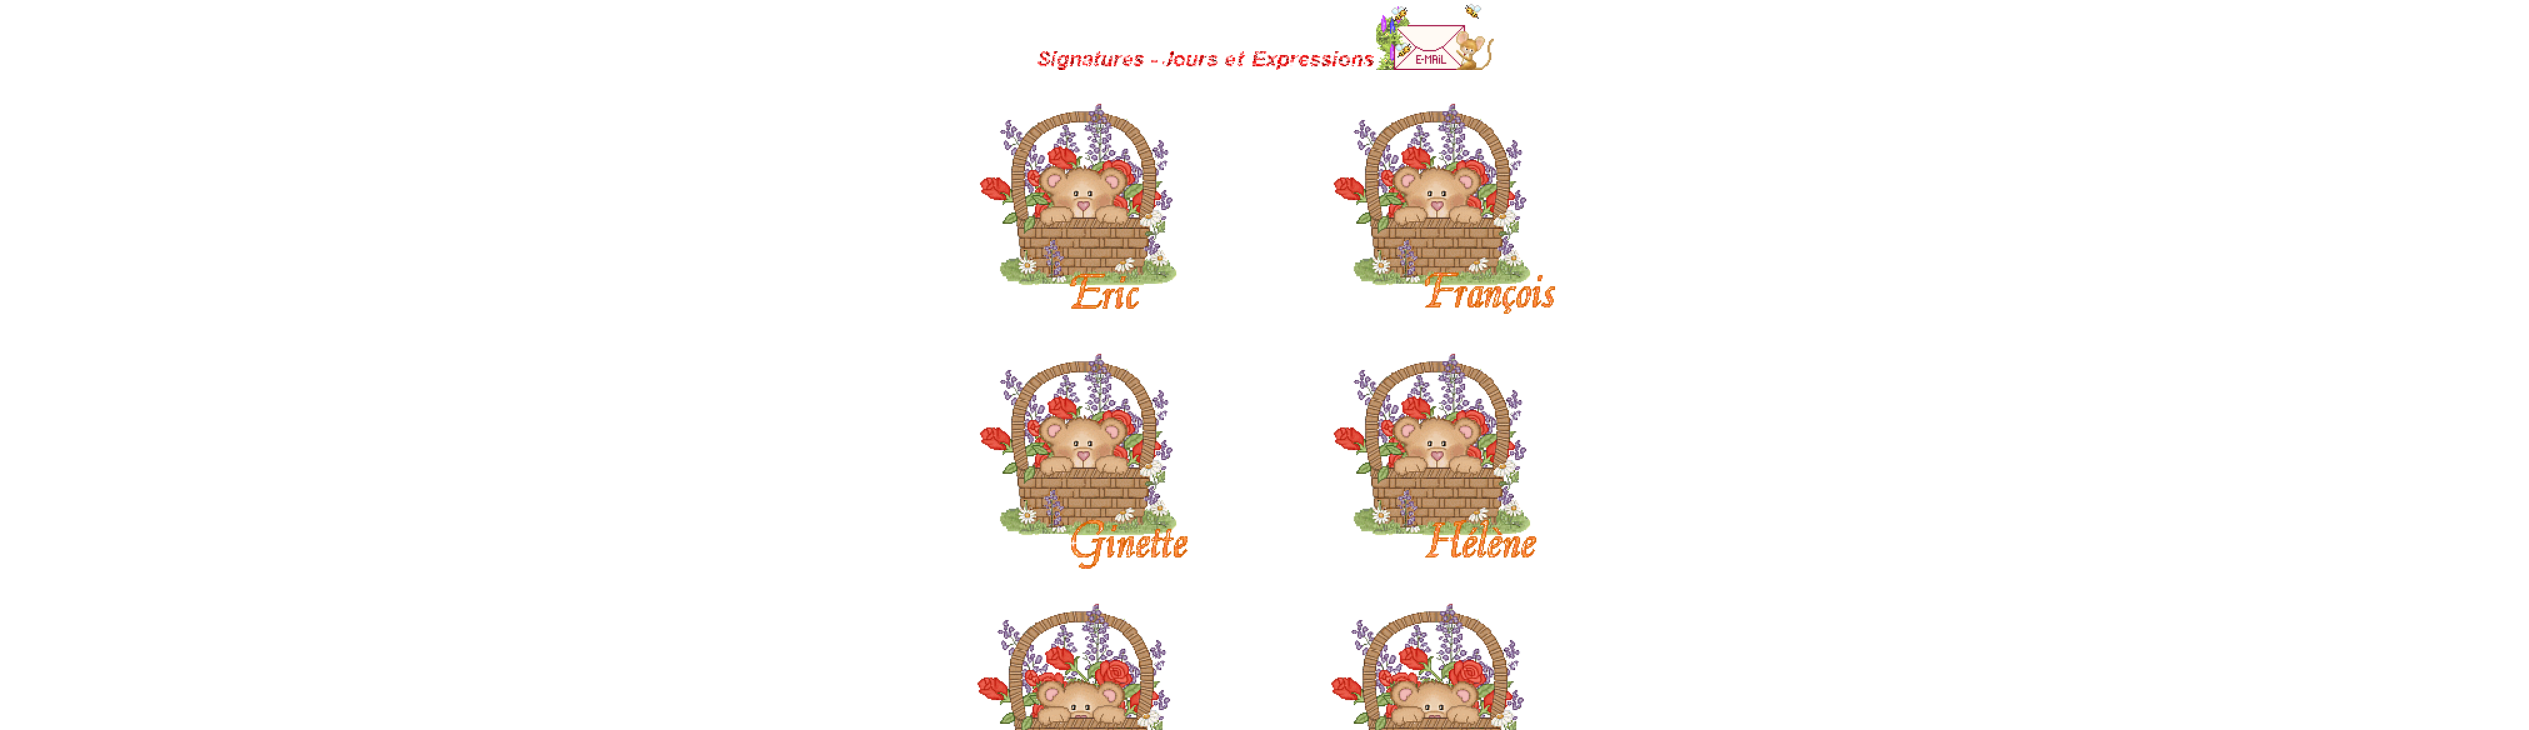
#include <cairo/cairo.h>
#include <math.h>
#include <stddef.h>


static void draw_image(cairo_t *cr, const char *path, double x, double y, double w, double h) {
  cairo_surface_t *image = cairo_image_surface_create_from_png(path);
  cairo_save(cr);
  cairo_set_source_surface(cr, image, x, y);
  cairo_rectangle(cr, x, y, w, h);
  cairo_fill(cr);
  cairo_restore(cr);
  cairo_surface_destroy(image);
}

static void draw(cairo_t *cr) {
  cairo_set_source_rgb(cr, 1, 1, 1);
  cairo_paint(cr);
  draw_image(cr, "images/1.png", 1037, 51, 107, 19);
  draw_image(cr, "images/2.png", 1151, 59, 7, 4);
  draw_image(cr, "images/3.png", 1162, 51, 212, 19);
  draw_image(cr, "images/4.png", 1376, 3, 118, 67);
  draw_image(cr, "images/5.png", 979, 103, 198, 206);
  draw_image(cr, "images/6.png", 1333, 103, 223, 211);
  draw_image(cr, "images/7.png", 979, 353, 209, 216);
  draw_image(cr, "images/8.png", 1333, 353, 204, 205);
  draw_image(cr, "images/9.png", 977, 603, 194, 127);
  draw_image(cr, "images/10.png", 1331, 603, 193, 127);
}

int main(void) {
  cairo_surface_t *surface = cairo_image_surface_create(CAIRO_FORMAT_RGB24, 2529, 730);
  cairo_t *cr = cairo_create(surface);
  cairo_font_options_t *options = cairo_font_options_create();
  cairo_font_options_set_hint_metrics(options, CAIRO_HINT_METRICS_OFF);
  cairo_font_options_set_hint_style(options, CAIRO_HINT_STYLE_NONE);
  cairo_set_font_options(cr, options);
  cairo_set_miter_limit(cr, 4);
  draw(cr);
  cairo_surface_write_to_png(surface, "out.png");
  cairo_font_options_destroy(options);
  cairo_destroy(cr);
  cairo_surface_destroy(surface);
  return 0;
}
